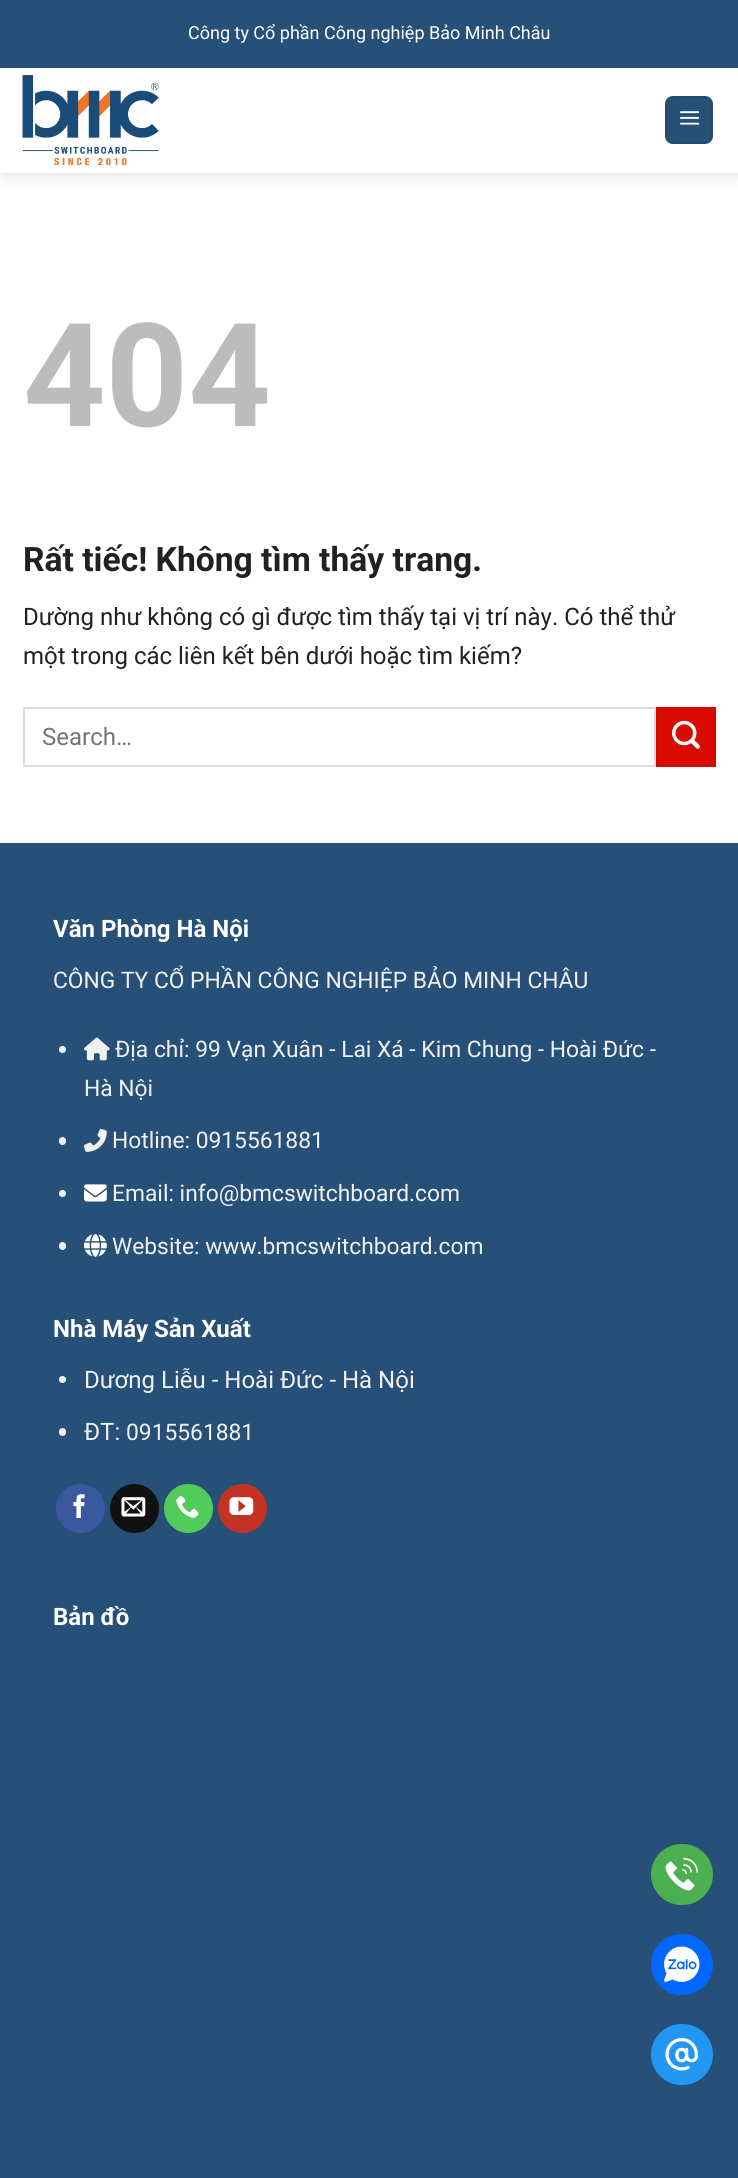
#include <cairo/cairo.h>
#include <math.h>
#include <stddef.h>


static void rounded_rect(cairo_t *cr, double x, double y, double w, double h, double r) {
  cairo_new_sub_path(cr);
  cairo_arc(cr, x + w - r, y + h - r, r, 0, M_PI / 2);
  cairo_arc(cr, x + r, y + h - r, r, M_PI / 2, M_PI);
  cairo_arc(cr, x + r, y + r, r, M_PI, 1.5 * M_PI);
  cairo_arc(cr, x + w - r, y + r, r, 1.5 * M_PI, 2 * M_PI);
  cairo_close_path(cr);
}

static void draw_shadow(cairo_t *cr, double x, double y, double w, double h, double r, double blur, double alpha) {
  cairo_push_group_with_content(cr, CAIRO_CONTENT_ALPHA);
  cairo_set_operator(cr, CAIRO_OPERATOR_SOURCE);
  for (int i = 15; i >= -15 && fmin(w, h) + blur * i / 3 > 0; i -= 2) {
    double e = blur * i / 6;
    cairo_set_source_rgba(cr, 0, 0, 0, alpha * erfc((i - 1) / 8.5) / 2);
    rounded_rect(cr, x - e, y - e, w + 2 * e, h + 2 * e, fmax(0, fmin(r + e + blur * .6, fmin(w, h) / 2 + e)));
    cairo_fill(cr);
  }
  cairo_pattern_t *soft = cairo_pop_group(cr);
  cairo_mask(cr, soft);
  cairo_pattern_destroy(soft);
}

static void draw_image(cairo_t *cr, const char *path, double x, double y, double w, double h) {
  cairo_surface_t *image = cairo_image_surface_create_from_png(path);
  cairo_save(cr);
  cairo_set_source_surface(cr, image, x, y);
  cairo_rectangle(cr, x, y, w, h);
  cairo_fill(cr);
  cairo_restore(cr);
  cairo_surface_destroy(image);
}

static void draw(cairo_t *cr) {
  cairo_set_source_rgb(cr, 1, 1, 1);
  cairo_paint(cr);
  cairo_save(cr);
  cairo_set_fill_rule(cr, CAIRO_FILL_RULE_EVEN_ODD);
  cairo_new_path(cr);
  cairo_move_to(cr, 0, 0);
  cairo_line_to(cr, 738, 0);
  cairo_line_to(cr, 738, 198);
  cairo_line_to(cr, 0, 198);
  cairo_close_path(cr);
  cairo_move_to(cr, 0, 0);
  cairo_line_to(cr, 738, 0);
  cairo_line_to(cr, 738, 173);
  cairo_line_to(cr, 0, 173);
  cairo_close_path(cr);
  cairo_clip(cr);
  cairo_set_source_rgb(cr, 0, 0, 0);
  draw_shadow(cr, 2, 2, 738, 172, 0, 7.5, 0.15);
  cairo_restore(cr);
  cairo_set_source_rgb(cr, 38 / 255.0, 80 / 255.0, 120 / 255.0);
  cairo_rectangle(cr, 0, 0, 738, 68);
  cairo_fill(cr);
  draw_image(cr, "images/1.png", 22, 75, 137, 90);
  rounded_rect(cr, 665, 96, 48, 48, 8);
  cairo_fill(cr);
  cairo_rectangle(cr, 666, 97, 46, 46);
  cairo_set_source_rgba(cr, 0, 0, 0, 0.05);
  cairo_stroke(cr);
  draw_image(cr, "images/2.png", 679, 111, 21, 14);
  cairo_set_source_rgba(cr, 1, 1, 1, 0.9);
  cairo_rectangle(cr, 0, 172, 738, 1);
  cairo_fill(cr);
  cairo_rectangle(cr, 24, 708, 631, 58);
  cairo_set_source_rgb(cr, 221 / 255.0, 221 / 255.0, 221 / 255.0);
  cairo_stroke(cr);
  cairo_set_source_rgb(cr, 218 / 255.0, 11 / 255.0, 0);
  cairo_rectangle(cr, 657, 708, 58, 58);
  cairo_fill_preserve(cr);
  cairo_set_source_rgb(cr, 207 / 255.0, 10 / 255.0, 0);
  cairo_stroke(cr);
  draw_image(cr, "images/3.png", 672, 720, 28, 29);
  cairo_set_source_rgb(cr, 38 / 255.0, 80 / 255.0, 120 / 255.0);
  cairo_rectangle(cr, 0, 843, 738, 1335);
  cairo_fill(cr);
  cairo_set_source_rgb(cr, 241 / 255.0, 241 / 255.0, 241 / 255.0);
  cairo_arc(cr, 62.5, 1049.5, 3.5, 0, 2 * M_PI);
  cairo_fill(cr);
  draw_image(cr, "images/4.png", 84, 1037, 26, 24);
  rounded_rect(cr, 59, 1137, 7, 8, 3.5);
  cairo_fill(cr);
  draw_image(cr, "images/5.png", 84, 1129, 23, 23);
  cairo_arc(cr, 62.5, 1193.5, 3.5, 0, 2 * M_PI);
  cairo_fill(cr);
  draw_image(cr, "images/6.png", 84, 1184, 23, 18);
  rounded_rect(cr, 59, 1242, 7, 8, 3.5);
  cairo_fill(cr);
  draw_image(cr, "images/7.png", 84, 1234, 23, 23);
  cairo_arc(cr, 62.5, 1379.5, 3.5, 0, 2 * M_PI);
  cairo_fill(cr);
  rounded_rect(cr, 59, 1428, 7, 8, 3.5);
  cairo_fill(cr);
  cairo_set_source_rgb(cr, 58 / 255.0, 88 / 255.0, 157 / 255.0);
  cairo_arc(cr, 80.5, 1508.5, 23.5, 0, 2 * M_PI);
  cairo_fill_preserve(cr);
  cairo_stroke(cr);
  draw_image(cr, "images/8.png", 73, 1494, 12, 24);
  cairo_set_source_rgb(cr, 17 / 255.0, 17 / 255.0, 17 / 255.0);
  cairo_arc(cr, 134.5, 1508.5, 23.5, 0, 2 * M_PI);
  cairo_fill_preserve(cr);
  cairo_stroke(cr);
  draw_image(cr, "images/9.png", 121, 1497, 25, 20);
  cairo_set_source_rgb(cr, 81 / 255.0, 203 / 255.0, 90 / 255.0);
  cairo_arc(cr, 188.5, 1508.5, 23.5, 0, 2 * M_PI);
  cairo_fill_preserve(cr);
  cairo_stroke(cr);
  draw_image(cr, "images/10.png", 176, 1495, 23, 23);
  cairo_set_source_rgb(cr, 195 / 255.0, 50 / 255.0, 35 / 255.0);
  cairo_arc(cr, 242.5, 1508.5, 23.5, 0, 2 * M_PI);
  cairo_fill_preserve(cr);
  cairo_stroke(cr);
  draw_image(cr, "images/11.png", 229, 1497, 25, 18);
  cairo_set_source_rgb(cr, 76 / 255.0, 175 / 255.0, 80 / 255.0);
  rounded_rect(cr, 651, 1844, 62, 61, 30.5);
  cairo_fill(cr);
  draw_image(cr, "images/12.png", 665, 1858, 33, 33);
  cairo_set_source_rgb(cr, 0, 104 / 255.0, 1);
  rounded_rect(cr, 651, 1934, 62, 61, 30.5);
  cairo_fill(cr);
  draw_image(cr, "images/13.png", 664, 1946, 36, 36);
  cairo_set_source_rgb(cr, 33 / 255.0, 150 / 255.0, 243 / 255.0);
  rounded_rect(cr, 651, 2024, 62, 61, 30.5);
  cairo_fill(cr);
  draw_image(cr, "images/14.png", 665, 2038, 34, 33);
  cairo_select_font_face(cr, "Roboto", CAIRO_FONT_SLANT_NORMAL, CAIRO_FONT_WEIGHT_NORMAL);
  cairo_set_font_size(cr, 18);
  cairo_set_source_rgb(cr, 1, 1, 1);
  cairo_move_to(cr, 188, 39);
  cairo_show_text(cr, "Công ty Cổ phần Công nghiệp Bảo Minh Châu");
  cairo_select_font_face(cr, "Roboto", CAIRO_FONT_SLANT_NORMAL, CAIRO_FONT_WEIGHT_BOLD);
  cairo_set_font_size(cr, 144);
  cairo_set_source_rgb(cr, 188 / 255.0, 188 / 255.0, 188 / 255.0);
  cairo_move_to(cr, 23, 426);
  cairo_show_text(cr, "404");
  cairo_set_font_size(cr, 33.6);
  cairo_set_source_rgb(cr, 33 / 255.0, 33 / 255.0, 33 / 255.0);
  cairo_move_to(cr, 23, 571);
  cairo_show_text(cr, "Rất tiếc! Không tìm thấy trang.");
  cairo_select_font_face(cr, "Roboto", CAIRO_FONT_SLANT_NORMAL, CAIRO_FONT_WEIGHT_NORMAL);
  cairo_set_font_size(cr, 24);
  cairo_move_to(cr, 23, 625);
  cairo_show_text(cr, "Dường như không có gì được tìm thấy tại vị trí này. Có thể thử");
  cairo_move_to(cr, 23, 664);
  cairo_show_text(cr, "một trong các liên kết bên dưới hoặc tìm kiếm?");
  cairo_set_source_rgb(cr, 117 / 255.0, 117 / 255.0, 117 / 255.0);
  cairo_move_to(cr, 42, 745);
  cairo_show_text(cr, "Search…");
  cairo_select_font_face(cr, "Roboto", CAIRO_FONT_SLANT_NORMAL, CAIRO_FONT_WEIGHT_BOLD);
  cairo_set_source_rgb(cr, 1, 1, 1);
  cairo_move_to(cr, 53, 937);
  cairo_show_text(cr, "Văn Phòng Hà Nội");
  cairo_select_font_face(cr, "Roboto", CAIRO_FONT_SLANT_NORMAL, CAIRO_FONT_WEIGHT_NORMAL);
  cairo_set_font_size(cr, 22.8);
  cairo_set_source_rgb(cr, 241 / 255.0, 241 / 255.0, 241 / 255.0);
  cairo_move_to(cr, 53, 988);
  cairo_show_text(cr, "CÔNG TY CỔ PHẦN CÔNG NGHIỆP BẢO MINH CHÂU");
  cairo_move_to(cr, 115, 1057);
  cairo_show_text(cr, "Địa chỉ: 99 Vạn Xuân - Lai Xá - Kim Chung - Hoài Đức -");
  cairo_move_to(cr, 84, 1096);
  cairo_show_text(cr, "Hà Nội");
  cairo_move_to(cr, 112, 1148);
  cairo_show_text(cr, "Hotline: 0915561881");
  cairo_move_to(cr, 112, 1201);
  cairo_show_text(cr, "Email: info@bmcswitchboard.com");
  cairo_move_to(cr, 112, 1254);
  cairo_show_text(cr, "Website: www.bmcswitchboard.com");
  cairo_select_font_face(cr, "Roboto", CAIRO_FONT_SLANT_NORMAL, CAIRO_FONT_WEIGHT_BOLD);
  cairo_set_font_size(cr, 24);
  cairo_set_source_rgb(cr, 1, 1, 1);
  cairo_move_to(cr, 53, 1337);
  cairo_show_text(cr, "Nhà Máy Sản Xuất");
  cairo_select_font_face(cr, "Roboto", CAIRO_FONT_SLANT_NORMAL, CAIRO_FONT_WEIGHT_NORMAL);
  cairo_set_source_rgb(cr, 241 / 255.0, 241 / 255.0, 241 / 255.0);
  cairo_move_to(cr, 84, 1388);
  cairo_show_text(cr, "Dương Liễu - Hoài Đức - Hà Nội");
  cairo_move_to(cr, 84, 1440);
  cairo_show_text(cr, "ĐT:");
  cairo_set_font_size(cr, 22.8);
  cairo_move_to(cr, 126, 1440);
  cairo_show_text(cr, "0915561881");
  cairo_select_font_face(cr, "Roboto", CAIRO_FONT_SLANT_NORMAL, CAIRO_FONT_WEIGHT_BOLD);
  cairo_set_font_size(cr, 24);
  cairo_set_source_rgb(cr, 1, 1, 1);
  cairo_move_to(cr, 53, 1625);
  cairo_show_text(cr, "Bản đồ");
}

int main(void) {
  cairo_surface_t *surface = cairo_image_surface_create(CAIRO_FORMAT_RGB24, 738, 2178);
  cairo_t *cr = cairo_create(surface);
  cairo_font_options_t *options = cairo_font_options_create();
  cairo_font_options_set_hint_metrics(options, CAIRO_HINT_METRICS_OFF);
  cairo_font_options_set_hint_style(options, CAIRO_HINT_STYLE_NONE);
  cairo_set_font_options(cr, options);
  cairo_set_miter_limit(cr, 4);
  draw(cr);
  cairo_surface_write_to_png(surface, "out.png");
  cairo_font_options_destroy(options);
  cairo_destroy(cr);
  cairo_surface_destroy(surface);
  return 0;
}
